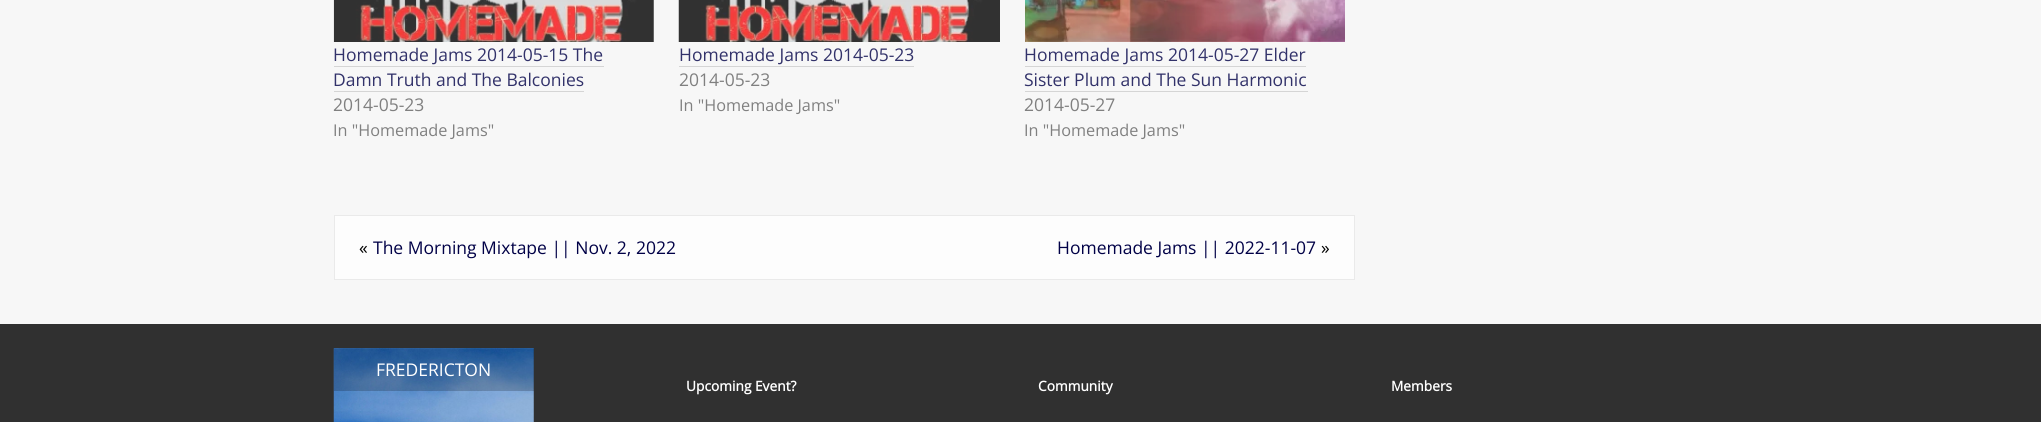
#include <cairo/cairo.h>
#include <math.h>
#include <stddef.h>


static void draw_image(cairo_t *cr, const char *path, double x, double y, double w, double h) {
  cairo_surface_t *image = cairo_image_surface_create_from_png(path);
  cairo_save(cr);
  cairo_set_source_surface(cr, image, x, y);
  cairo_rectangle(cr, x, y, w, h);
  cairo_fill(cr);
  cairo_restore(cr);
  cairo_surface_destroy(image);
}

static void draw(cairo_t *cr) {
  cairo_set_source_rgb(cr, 247 / 255.0, 247 / 255.0, 247 / 255.0);
  cairo_paint(cr);
  draw_image(cr, "images/1.png", 333, 0, 321, 42);
  cairo_set_source_rgb(cr, 213 / 255.0, 213 / 255.0, 213 / 255.0);
  cairo_rectangle(cr, 334, 66, 270, 1);
  cairo_fill(cr);
  cairo_rectangle(cr, 334, 91, 250, 1);
  cairo_fill(cr);
  draw_image(cr, "images/2.png", 678, 0, 322, 42);
  cairo_rectangle(cr, 679, 66, 235, 1);
  cairo_fill(cr);
  draw_image(cr, "images/3.png", 1025, 0, 320, 42);
  cairo_rectangle(cr, 1025, 66, 281, 1);
  cairo_fill(cr);
  cairo_rectangle(cr, 1025, 91, 283, 1);
  cairo_fill(cr);
  cairo_set_source_rgb(cr, 253 / 255.0, 253 / 255.0, 253 / 255.0);
  cairo_rectangle(cr, 334.5, 215.5, 1020, 64);
  cairo_fill_preserve(cr);
  cairo_set_source_rgb(cr, 234 / 255.0, 234 / 255.0, 234 / 255.0);
  cairo_set_line_width(cr, 1);
  cairo_stroke(cr);
  cairo_set_source_rgb(cr, 48 / 255.0, 48 / 255.0, 48 / 255.0);
  cairo_rectangle(cr, 0, 324, 2041, 98);
  cairo_fill(cr);
  draw_image(cr, "images/4.png", 333, 348, 201, 74);
  cairo_set_source_rgba(cr, 0, 0, 0, 0.2);
  cairo_rectangle(cr, 334, 349, 200, 42);
  cairo_fill(cr);
  cairo_select_font_face(cr, "Open Sans", CAIRO_FONT_SLANT_NORMAL, CAIRO_FONT_WEIGHT_NORMAL);
  cairo_set_font_size(cr, 17.5);
  cairo_set_source_rgb(cr, 50 / 255.0, 50 / 255.0, 106 / 255.0);
  cairo_move_to(cr, 333, 61);
  cairo_show_text(cr, "Homemade Jams 2014-05-15 The");
  cairo_move_to(cr, 333, 86);
  cairo_show_text(cr, "Damn Truth and The Balconies");
  cairo_set_source_rgb(cr, 128 / 255.0, 128 / 255.0, 128 / 255.0);
  cairo_move_to(cr, 333, 111);
  cairo_show_text(cr, "2014-05-23");
  cairo_set_font_size(cr, 16.25);
  cairo_move_to(cr, 333, 136);
  cairo_show_text(cr, "In \"Homemade Jams\"");
  cairo_set_font_size(cr, 17.5);
  cairo_set_source_rgb(cr, 50 / 255.0, 50 / 255.0, 106 / 255.0);
  cairo_move_to(cr, 679, 61);
  cairo_show_text(cr, "Homemade Jams 2014-05-23");
  cairo_set_source_rgb(cr, 128 / 255.0, 128 / 255.0, 128 / 255.0);
  cairo_move_to(cr, 679, 86);
  cairo_show_text(cr, "2014-05-23");
  cairo_set_font_size(cr, 16.25);
  cairo_move_to(cr, 679, 111);
  cairo_show_text(cr, "In \"Homemade Jams\"");
  cairo_set_font_size(cr, 17.5);
  cairo_set_source_rgb(cr, 50 / 255.0, 50 / 255.0, 106 / 255.0);
  cairo_move_to(cr, 1024, 61);
  cairo_show_text(cr, "Homemade Jams 2014-05-27 Elder");
  cairo_move_to(cr, 1024, 86);
  cairo_show_text(cr, "Sister Plum and The Sun Harmonic");
  cairo_set_source_rgb(cr, 128 / 255.0, 128 / 255.0, 128 / 255.0);
  cairo_move_to(cr, 1024, 111);
  cairo_show_text(cr, "2014-05-27");
  cairo_set_font_size(cr, 16.25);
  cairo_move_to(cr, 1024, 136);
  cairo_show_text(cr, "In \"Homemade Jams\"");
  cairo_set_font_size(cr, 17.5);
  cairo_set_source_rgb(cr, 0, 0, 0);
  cairo_move_to(cr, 359, 254);
  cairo_show_text(cr, "«");
  cairo_set_source_rgb(cr, 1 / 255.0, 1 / 255.0, 71 / 255.0);
  cairo_move_to(cr, 373, 254);
  cairo_show_text(cr, "The Morning Mixtape || Nov. 2, 2022");
  cairo_move_to(cr, 1057, 254);
  cairo_show_text(cr, "Homemade Jams || 2022-11-07");
  cairo_set_source_rgb(cr, 0, 0, 0);
  cairo_move_to(cr, 1321, 254);
  cairo_show_text(cr, "»");
  cairo_set_source_rgb(cr, 1, 1, 1);
  cairo_move_to(cr, 376, 376);
  cairo_show_text(cr, "FREDERICTON");
  cairo_select_font_face(cr, "Open Sans", CAIRO_FONT_SLANT_NORMAL, CAIRO_FONT_WEIGHT_BOLD);
  cairo_set_font_size(cr, 13.75);
  cairo_move_to(cr, 686, 391);
  cairo_show_text(cr, "Upcoming Event?");
  cairo_move_to(cr, 1038, 391);
  cairo_show_text(cr, "Community");
  cairo_move_to(cr, 1391, 391);
  cairo_show_text(cr, "Members");
}

int main(void) {
  cairo_surface_t *surface = cairo_image_surface_create(CAIRO_FORMAT_RGB24, 2041, 422);
  cairo_t *cr = cairo_create(surface);
  cairo_font_options_t *options = cairo_font_options_create();
  cairo_font_options_set_hint_metrics(options, CAIRO_HINT_METRICS_OFF);
  cairo_font_options_set_hint_style(options, CAIRO_HINT_STYLE_NONE);
  cairo_set_font_options(cr, options);
  cairo_set_miter_limit(cr, 4);
  draw(cr);
  cairo_surface_write_to_png(surface, "out.png");
  cairo_font_options_destroy(options);
  cairo_destroy(cr);
  cairo_surface_destroy(surface);
  return 0;
}
